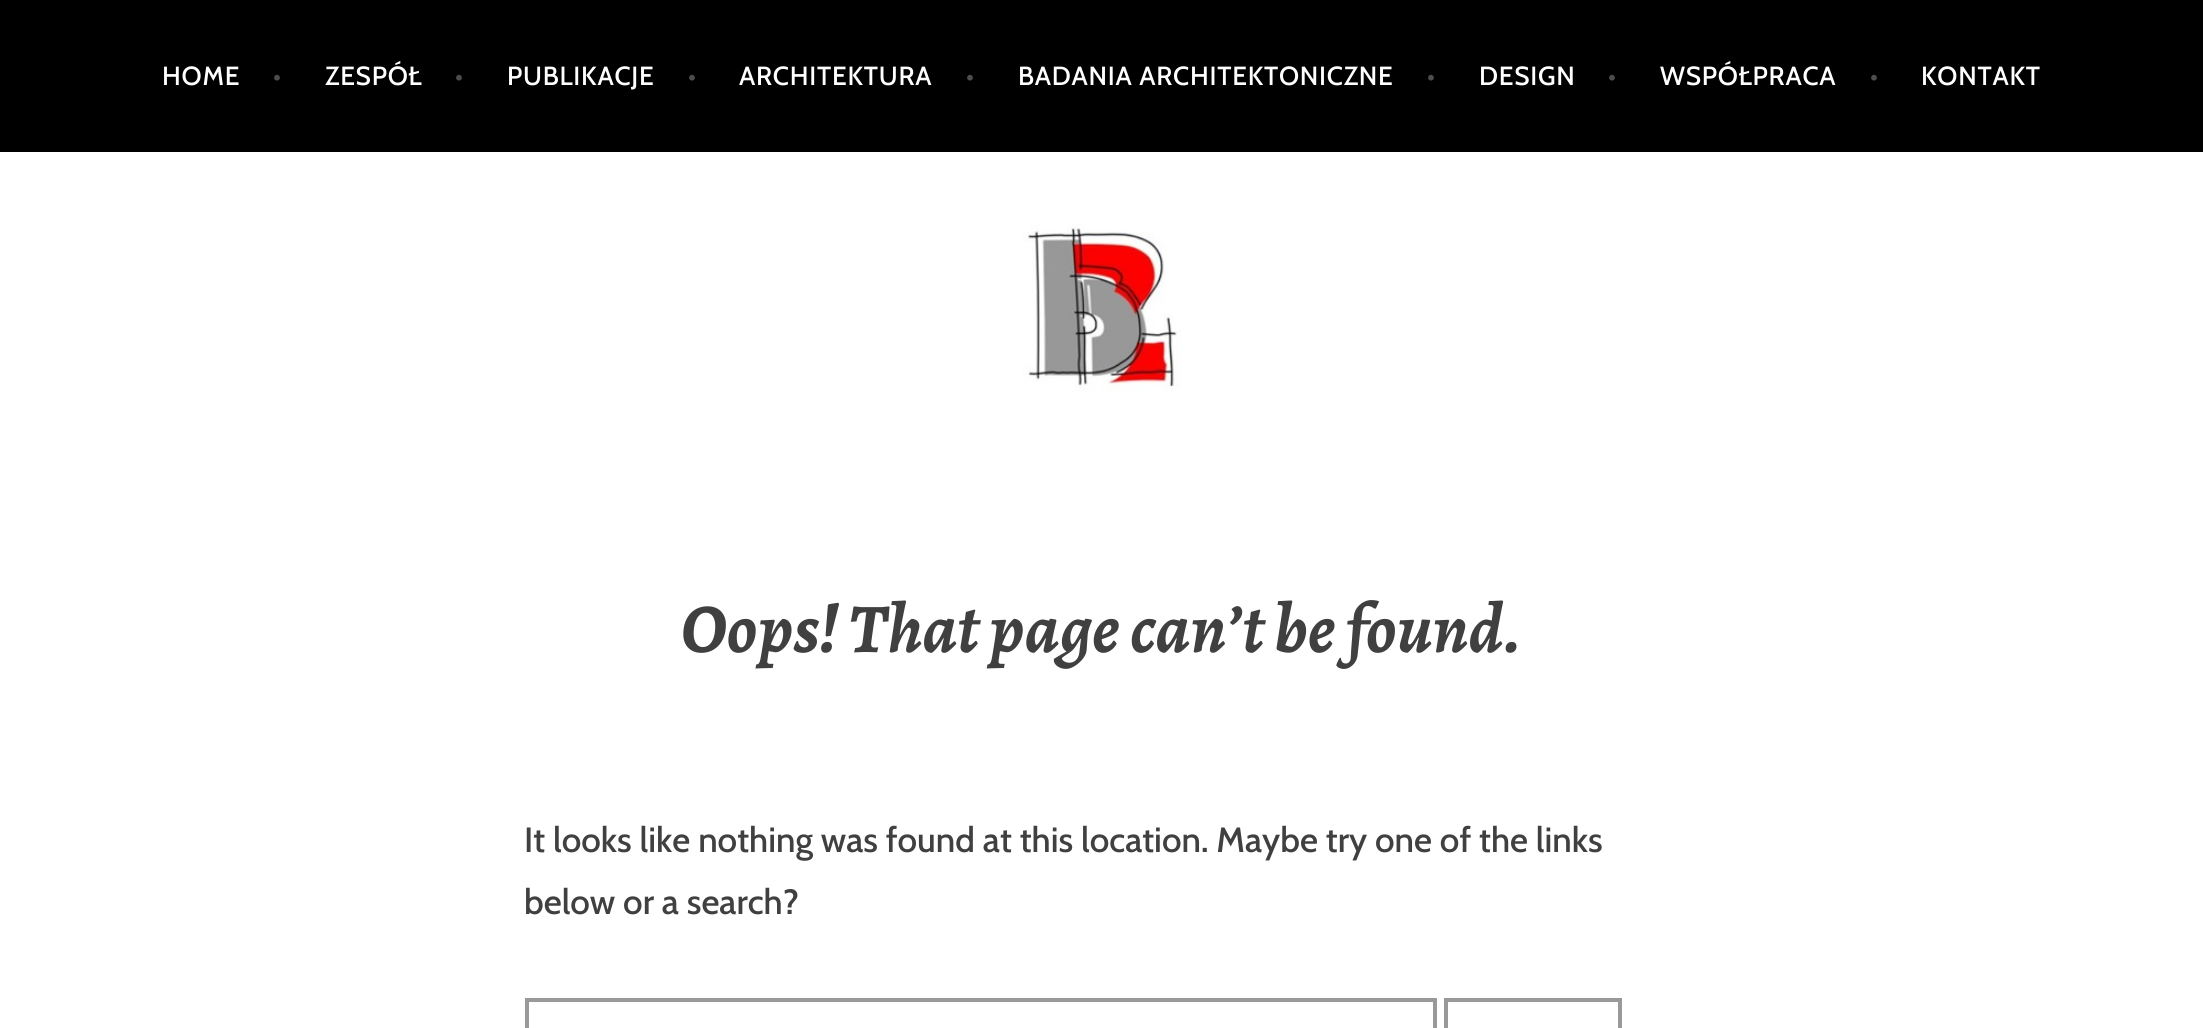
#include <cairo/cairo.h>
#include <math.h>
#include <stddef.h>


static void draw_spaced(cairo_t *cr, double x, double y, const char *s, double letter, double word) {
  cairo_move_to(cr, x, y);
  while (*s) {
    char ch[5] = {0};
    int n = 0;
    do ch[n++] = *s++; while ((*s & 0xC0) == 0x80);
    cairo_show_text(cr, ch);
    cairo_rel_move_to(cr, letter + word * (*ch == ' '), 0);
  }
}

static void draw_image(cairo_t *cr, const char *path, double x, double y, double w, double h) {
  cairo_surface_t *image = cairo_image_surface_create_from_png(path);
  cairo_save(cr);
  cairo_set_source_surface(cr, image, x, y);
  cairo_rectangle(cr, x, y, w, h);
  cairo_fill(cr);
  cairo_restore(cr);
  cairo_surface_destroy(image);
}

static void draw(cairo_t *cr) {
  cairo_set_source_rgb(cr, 1, 1, 1);
  cairo_paint(cr);
  cairo_set_source_rgb(cr, 0, 0, 0);
  cairo_rectangle(cr, 0, 0, 2203, 152);
  cairo_fill(cr);
  draw_image(cr, "images/1.png", 0, 152, 2203, 298);
  cairo_rectangle(cr, 527, 1000, 908, 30);
  cairo_set_source_rgb(cr, 153 / 255.0, 153 / 255.0, 153 / 255.0);
  cairo_set_line_width(cr, 4);
  cairo_stroke(cr);
  cairo_rectangle(cr, 1446, 1000, 174, 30);
  cairo_stroke(cr);
  cairo_select_font_face(cr, "Cabin Medium", CAIRO_FONT_SLANT_NORMAL, CAIRO_FONT_WEIGHT_NORMAL);
  cairo_set_font_size(cr, 26.25);
  cairo_set_source_rgb(cr, 1, 1, 1);
  draw_spaced(cr, 162, 85, "HOME", 0.75, 0);
  cairo_set_source_rgb(cr, 77 / 255.0, 77 / 255.0, 77 / 255.0);
  draw_spaced(cr, 273, 85, "•", 0.75, 0);
  cairo_set_source_rgb(cr, 1, 1, 1);
  draw_spaced(cr, 325, 85, "ZESPÓŁ", 0.75, 0);
  cairo_set_source_rgb(cr, 77 / 255.0, 77 / 255.0, 77 / 255.0);
  draw_spaced(cr, 455, 85, "•", 0.75, 0);
  cairo_set_source_rgb(cr, 1, 1, 1);
  draw_spaced(cr, 507, 85, "PUBLIKACJE", 0.75, 0);
  cairo_set_source_rgb(cr, 77 / 255.0, 77 / 255.0, 77 / 255.0);
  draw_spaced(cr, 688, 85, "•", 0.75, 0);
  cairo_set_source_rgb(cr, 1, 1, 1);
  draw_spaced(cr, 739, 85, "ARCHITEKTURA", 0.75, 0);
  cairo_set_source_rgb(cr, 77 / 255.0, 77 / 255.0, 77 / 255.0);
  draw_spaced(cr, 966, 85, "•", 0.75, 0);
  cairo_set_source_rgb(cr, 1, 1, 1);
  draw_spaced(cr, 1018, 85, "BADANIA ARCHITEKTONICZNE", 0.75, 0);
  cairo_set_source_rgb(cr, 77 / 255.0, 77 / 255.0, 77 / 255.0);
  draw_spaced(cr, 1427, 85, "•", 0.75, 0);
  cairo_set_source_rgb(cr, 1, 1, 1);
  draw_spaced(cr, 1479, 85, "DESIGN", 0.75, 0);
  cairo_set_source_rgb(cr, 77 / 255.0, 77 / 255.0, 77 / 255.0);
  draw_spaced(cr, 1608, 85, "•", 0.75, 0);
  cairo_set_source_rgb(cr, 1, 1, 1);
  draw_spaced(cr, 1660, 85, "WSPÓŁPRACA", 0.75, 0);
  cairo_set_source_rgb(cr, 77 / 255.0, 77 / 255.0, 77 / 255.0);
  draw_spaced(cr, 1870, 85, "•", 0.75, 0);
  cairo_set_source_rgb(cr, 1, 1, 1);
  draw_spaced(cr, 1921, 85, "KONTAKT", 0.75, 0);
  cairo_select_font_face(cr, "Alegreya", CAIRO_FONT_SLANT_ITALIC, CAIRO_FONT_WEIGHT_BOLD);
  cairo_set_font_size(cr, 70);
  cairo_set_source_rgb(cr, 64 / 255.0, 64 / 255.0, 64 / 255.0);
  cairo_move_to(cr, 681, 652);
  cairo_show_text(cr, "Oops! That page can’t be found.");
  cairo_select_font_face(cr, "Cabin Medium", CAIRO_FONT_SLANT_NORMAL, CAIRO_FONT_WEIGHT_NORMAL);
  cairo_set_font_size(cr, 35);
  cairo_move_to(cr, 524, 852);
  cairo_show_text(cr, "It looks like nothing was found at this location. Maybe try one of the links");
  cairo_move_to(cr, 524, 914);
  cairo_show_text(cr, "below or a search?");
}

int main(void) {
  cairo_surface_t *surface = cairo_image_surface_create(CAIRO_FORMAT_RGB24, 2203, 1028);
  cairo_t *cr = cairo_create(surface);
  cairo_font_options_t *options = cairo_font_options_create();
  cairo_font_options_set_hint_metrics(options, CAIRO_HINT_METRICS_OFF);
  cairo_font_options_set_hint_style(options, CAIRO_HINT_STYLE_NONE);
  cairo_set_font_options(cr, options);
  cairo_set_miter_limit(cr, 4);
  draw(cr);
  cairo_surface_write_to_png(surface, "out.png");
  cairo_font_options_destroy(options);
  cairo_destroy(cr);
  cairo_surface_destroy(surface);
  return 0;
}
